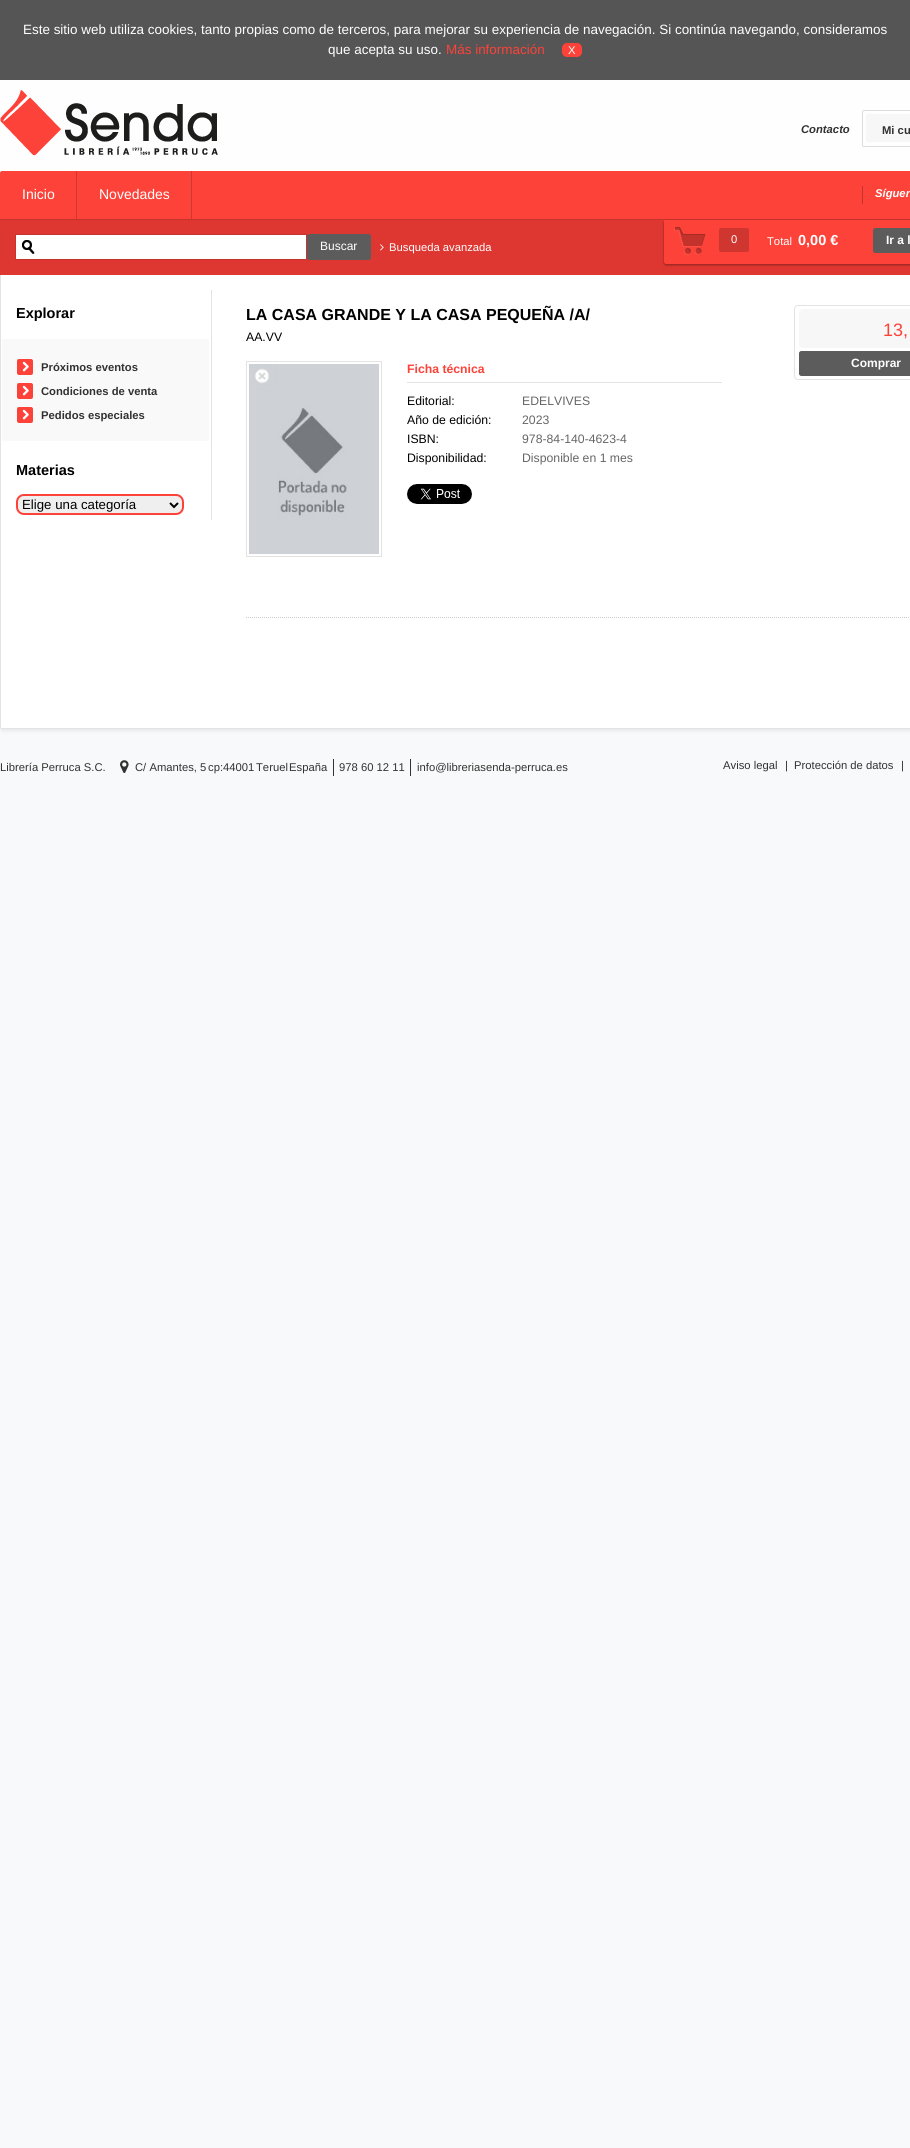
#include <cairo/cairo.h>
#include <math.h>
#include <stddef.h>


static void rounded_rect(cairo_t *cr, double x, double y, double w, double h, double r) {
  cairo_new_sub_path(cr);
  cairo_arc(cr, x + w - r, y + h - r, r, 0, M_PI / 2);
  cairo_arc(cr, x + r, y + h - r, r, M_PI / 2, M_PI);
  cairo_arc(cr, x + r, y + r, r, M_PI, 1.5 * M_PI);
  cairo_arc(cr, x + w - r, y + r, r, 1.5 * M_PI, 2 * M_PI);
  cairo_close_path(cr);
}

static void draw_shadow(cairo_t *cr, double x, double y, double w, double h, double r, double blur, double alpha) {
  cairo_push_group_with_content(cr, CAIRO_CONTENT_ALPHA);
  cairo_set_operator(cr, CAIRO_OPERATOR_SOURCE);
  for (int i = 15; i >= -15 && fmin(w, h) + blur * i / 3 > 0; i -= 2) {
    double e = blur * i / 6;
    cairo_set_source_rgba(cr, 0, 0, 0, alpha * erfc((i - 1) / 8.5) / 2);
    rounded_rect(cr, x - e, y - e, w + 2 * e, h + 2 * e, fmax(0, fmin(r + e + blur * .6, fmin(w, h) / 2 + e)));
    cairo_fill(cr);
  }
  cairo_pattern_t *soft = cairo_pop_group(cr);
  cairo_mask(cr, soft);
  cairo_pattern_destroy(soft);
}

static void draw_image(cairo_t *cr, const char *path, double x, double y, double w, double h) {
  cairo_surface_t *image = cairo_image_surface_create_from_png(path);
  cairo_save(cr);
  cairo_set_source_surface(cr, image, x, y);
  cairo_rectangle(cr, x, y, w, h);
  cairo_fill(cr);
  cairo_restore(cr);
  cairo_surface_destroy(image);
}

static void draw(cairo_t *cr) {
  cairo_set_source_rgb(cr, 248 / 255.0, 249 / 255.0, 250 / 255.0);
  cairo_paint(cr);
  cairo_set_source_rgb(cr, 254 / 255.0, 254 / 255.0, 1);
  cairo_rectangle(cr, 0, 80, 910, 93);
  cairo_fill(cr);
  cairo_set_source_rgb(cr, 85 / 255.0, 85 / 255.0, 85 / 255.0);
  cairo_rectangle(cr, 0, 0, 910, 80);
  cairo_fill(cr);
  cairo_set_source_rgb(cr, 252 / 255.0, 66 / 255.0, 57 / 255.0);
  rounded_rect(cr, 562, 43, 20, 14, 5);
  cairo_fill(cr);
  draw_image(cr, "images/1.png", 0, 90, 218, 66);
  rounded_rect(cr, 862.5, 110.5, 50, 36, 1.5);
  cairo_set_source_rgb(cr, 221 / 255.0, 221 / 255.0, 221 / 255.0);
  cairo_set_line_width(cr, 1);
  cairo_stroke(cr);
  cairo_set_source_rgb(cr, 247 / 255.0, 247 / 255.0, 247 / 255.0);
  rounded_rect(cr, 866, 114, 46, 28, 2);
  cairo_fill(cr);
  cairo_set_source_rgb(cr, 252 / 255.0, 66 / 255.0, 57 / 255.0);
  cairo_new_path(cr);
  cairo_move_to(cr, 2, 171);
  cairo_line_to(cr, 910, 171);
  cairo_curve_to(cr, 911, 171, 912, 172, 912, 173);
  cairo_line_to(cr, 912, 220);
  cairo_line_to(cr, 0, 220);
  cairo_line_to(cr, 0, 173);
  cairo_curve_to(cr, 0, 172, 1, 171, 2, 171);
  cairo_close_path(cr);
  cairo_fill(cr);
  cairo_set_source_rgb(cr, 197 / 255.0, 52 / 255.0, 44 / 255.0);
  cairo_rectangle(cr, 0, 219, 910, 1);
  cairo_fill(cr);
  cairo_set_source_rgb(cr, 205 / 255.0, 57 / 255.0, 50 / 255.0);
  cairo_rectangle(cr, 76, 171, 1, 48);
  cairo_fill(cr);
  cairo_rectangle(cr, 191, 171, 1, 48);
  cairo_fill(cr);
  cairo_set_source_rgb(cr, 197 / 255.0, 52 / 255.0, 44 / 255.0);
  cairo_rectangle(cr, 862, 186, 1, 18);
  cairo_fill(cr);
  cairo_set_source_rgb(cr, 0, 0, 0);
  draw_shadow(cr, 0, 277, 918, 454, 2, 2, 0.07);
  cairo_set_source_rgb(cr, 222 / 255.0, 54 / 255.0, 48 / 255.0);
  cairo_rectangle(cr, 0, 220, 910, 55);
  cairo_fill(cr);
  cairo_set_source_rgb(cr, 1, 1, 1);
  cairo_rectangle(cr, 16, 235, 290, 24);
  cairo_fill(cr);
  draw_image(cr, "images/2.png", 22, 240, 13, 14);
  cairo_rectangle(cr, 15.5, 234.5, 291, 25);
  cairo_set_source_rgb(cr, 197 / 255.0, 52 / 255.0, 44 / 255.0);
  cairo_stroke(cr);
  cairo_set_source_rgb(cr, 92 / 255.0, 92 / 255.0, 92 / 255.0);
  rounded_rect(cr, 307.5, 234.5, 63, 25, 2);
  cairo_fill_preserve(cr);
  cairo_stroke(cr);
  draw_image(cr, "images/3.png", 380, 244, 4, 7);
  cairo_set_source_rgb(cr, 0, 0, 0);
  draw_shadow(cr, 664, 221, 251, 44, 2, 1, 0.37);
  cairo_set_source_rgb(cr, 252 / 255.0, 66 / 255.0, 57 / 255.0);
  cairo_new_path(cr);
  cairo_move_to(cr, 664, 220);
  cairo_line_to(cr, 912, 220);
  cairo_line_to(cr, 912, 262);
  cairo_curve_to(cr, 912, 263, 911, 264, 910, 264);
  cairo_line_to(cr, 666, 264);
  cairo_curve_to(cr, 665, 264, 664, 263, 664, 262);
  cairo_close_path(cr);
  cairo_fill(cr);
  draw_image(cr, "images/4.png", 674, 227, 32, 28);
  cairo_set_source_rgb(cr, 207 / 255.0, 54 / 255.0, 47 / 255.0);
  rounded_rect(cr, 719, 228, 30, 24, 2);
  cairo_fill(cr);
  cairo_set_source_rgb(cr, 92 / 255.0, 92 / 255.0, 92 / 255.0);
  rounded_rect(cr, 873.5, 228.5, 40, 24, 2);
  cairo_fill_preserve(cr);
  cairo_stroke(cr);
  cairo_set_source_rgb(cr, 1, 1, 1);
  cairo_new_path(cr);
  cairo_move_to(cr, 0, 275);
  cairo_line_to(cr, 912, 275);
  cairo_line_to(cr, 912, 727);
  cairo_curve_to(cr, 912, 728, 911, 729, 910, 729);
  cairo_line_to(cr, 2, 729);
  cairo_curve_to(cr, 1, 729, 0, 728, 0, 727);
  cairo_close_path(cr);
  cairo_fill(cr);
  cairo_set_source_rgb(cr, 227 / 255.0, 227 / 255.0, 227 / 255.0);
  cairo_set_fill_rule(cr, CAIRO_FILL_RULE_EVEN_ODD);
  cairo_new_path(cr);
  cairo_move_to(cr, 0, 275);
  cairo_line_to(cr, 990, 275);
  cairo_line_to(cr, 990, 727);
  cairo_curve_to(cr, 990, 728, 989, 729, 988, 729);
  cairo_line_to(cr, 2, 729);
  cairo_curve_to(cr, 1, 729, 0, 728, 0, 727);
  cairo_close_path(cr);
  cairo_move_to(cr, 1, 275);
  cairo_line_to(cr, 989, 275);
  cairo_line_to(cr, 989, 727);
  cairo_curve_to(cr, 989, 727, 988, 728, 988, 728);
  cairo_line_to(cr, 2, 728);
  cairo_curve_to(cr, 2, 728, 1, 727, 1, 727);
  cairo_close_path(cr);
  cairo_fill(cr);
  cairo_rectangle(cr, 211, 290, 1, 230);
  cairo_fill(cr);
  cairo_set_source_rgb(cr, 249 / 255.0, 249 / 255.0, 249 / 255.0);
  cairo_rectangle(cr, 2, 339, 207, 102);
  cairo_fill(cr);
  cairo_set_source_rgb(cr, 252 / 255.0, 66 / 255.0, 57 / 255.0);
  rounded_rect(cr, 17, 359, 16, 16, 2);
  cairo_fill(cr);
  draw_image(cr, "images/5.png", 22, 361, 7, 11);
  rounded_rect(cr, 17, 383, 16, 16, 2);
  cairo_fill(cr);
  draw_image(cr, "images/5.png", 22, 385, 7, 11);
  rounded_rect(cr, 17, 407, 16, 16, 2);
  cairo_fill(cr);
  draw_image(cr, "images/5.png", 22, 409, 7, 11);
  cairo_set_source_rgb(cr, 239 / 255.0, 239 / 255.0, 239 / 255.0);
  rounded_rect(cr, 17, 495, 166, 19, 7);
  cairo_fill_preserve(cr);
  cairo_set_source_rgb(cr, 252 / 255.0, 66 / 255.0, 57 / 255.0);
  cairo_set_line_width(cr, 2);
  cairo_stroke(cr);
  cairo_new_path(cr);
  cairo_move_to(cr, 170, 503);
  cairo_line_to(cr, 174, 507);
  cairo_line_to(cr, 178, 503);
  cairo_set_source_rgb(cr, 0, 0, 0);
  cairo_stroke(cr);
  cairo_rectangle(cr, 246.5, 361.5, 135, 195);
  cairo_set_source_rgb(cr, 227 / 255.0, 227 / 255.0, 227 / 255.0);
  cairo_set_line_width(cr, 1);
  cairo_stroke(cr);
  draw_image(cr, "images/6.png", 249, 364, 130, 190);
  cairo_rectangle(cr, 407, 382, 315, 1);
  cairo_fill(cr);
  draw_image(cr, "images/7.png", 407, 484, 65, 20);
  rounded_rect(cr, 794.5, 305.5, 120, 74, 3.5);
  cairo_stroke(cr);
  cairo_set_source_rgb(cr, 247 / 255.0, 247 / 255.0, 247 / 255.0);
  rounded_rect(cr, 799, 309, 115, 39, 4);
  cairo_fill(cr);
  cairo_set_source_rgb(cr, 92 / 255.0, 92 / 255.0, 92 / 255.0);
  rounded_rect(cr, 799.5, 351.5, 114, 24, 2);
  cairo_fill_preserve(cr);
  cairo_stroke(cr);
  cairo_new_path(cr);
  cairo_move_to(cr, 246, 617.5);
  cairo_line_to(cr, 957, 617.5);
  cairo_set_source_rgb(cr, 204 / 255.0, 204 / 255.0, 204 / 255.0);
  cairo_set_dash(cr, (double[]){1, 1}, 2, 0);
  cairo_stroke(cr);
  draw_image(cr, "images/8.png", 120, 760, 9, 13);
  cairo_set_source_rgb(cr, 50 / 255.0, 50 / 255.0, 50 / 255.0);
  cairo_rectangle(cr, 410, 759, 1, 17);
  cairo_fill(cr);
  cairo_rectangle(cr, 333, 759, 1, 17);
  cairo_fill(cr);
  cairo_select_font_face(cr, "Liberation Sans", CAIRO_FONT_SLANT_NORMAL, CAIRO_FONT_WEIGHT_NORMAL);
  cairo_set_font_size(cr, 13.45);
  cairo_set_source_rgb(cr, 1, 1, 1);
  cairo_move_to(cr, 23, 34);
  cairo_show_text(cr, "Este sitio web utiliza cookies, tanto propias como de terceros, para mejorar su experiencia de navegación. Si continúa navegando, consideramos");
  cairo_move_to(cr, 328, 54);
  cairo_show_text(cr, "que acepta su uso.");
  cairo_set_source_rgb(cr, 252 / 255.0, 66 / 255.0, 57 / 255.0);
  cairo_move_to(cr, 446, 54);
  cairo_show_text(cr, "Más información");
  cairo_set_font_size(cr, 11.25);
  cairo_set_source_rgb(cr, 1, 1, 1);
  cairo_move_to(cr, 568, 54);
  cairo_show_text(cr, "X");
  cairo_select_font_face(cr, "Liberation Sans", CAIRO_FONT_SLANT_ITALIC, CAIRO_FONT_WEIGHT_BOLD);
  cairo_set_source_rgb(cr, 50 / 255.0, 50 / 255.0, 50 / 255.0);
  cairo_move_to(cr, 801, 133);
  cairo_show_text(cr, "Contacto");
  cairo_select_font_face(cr, "Liberation Sans", CAIRO_FONT_SLANT_NORMAL, CAIRO_FONT_WEIGHT_BOLD);
  cairo_move_to(cr, 882, 134);
  cairo_show_text(cr, "Mi cu");
  cairo_select_font_face(cr, "Liberation Sans", CAIRO_FONT_SLANT_NORMAL, CAIRO_FONT_WEIGHT_NORMAL);
  cairo_set_font_size(cr, 14);
  cairo_set_source_rgb(cr, 1, 1, 1);
  cairo_move_to(cr, 22, 199);
  cairo_show_text(cr, "Inicio");
  cairo_move_to(cr, 99, 199);
  cairo_show_text(cr, "Novedades");
  cairo_select_font_face(cr, "Liberation Sans", CAIRO_FONT_SLANT_ITALIC, CAIRO_FONT_WEIGHT_BOLD);
  cairo_set_font_size(cr, 11.25);
  cairo_move_to(cr, 875, 197);
  cairo_show_text(cr, "Síguen");
  cairo_select_font_face(cr, "Liberation Sans", CAIRO_FONT_SLANT_NORMAL, CAIRO_FONT_WEIGHT_NORMAL);
  cairo_set_font_size(cr, 12);
  cairo_move_to(cr, 320, 250);
  cairo_show_text(cr, "Buscar");
  cairo_set_font_size(cr, 11.25);
  cairo_move_to(cr, 389, 251);
  cairo_show_text(cr, "Busqueda avanzada");
  cairo_move_to(cr, 731, 243);
  cairo_show_text(cr, "0");
  cairo_move_to(cr, 767, 245);
  cairo_show_text(cr, "Total");
  cairo_select_font_face(cr, "Liberation Sans", CAIRO_FONT_SLANT_NORMAL, CAIRO_FONT_WEIGHT_BOLD);
  cairo_set_font_size(cr, 14.5);
  cairo_move_to(cr, 798, 245);
  cairo_show_text(cr, "0,00 €");
  cairo_set_font_size(cr, 12);
  cairo_move_to(cr, 886, 244);
  cairo_show_text(cr, "Ir a l");
  cairo_set_font_size(cr, 14.5);
  cairo_set_source_rgb(cr, 0, 0, 0);
  cairo_move_to(cr, 16, 318);
  cairo_show_text(cr, "Explorar");
  cairo_set_font_size(cr, 11.25);
  cairo_set_source_rgb(cr, 50 / 255.0, 50 / 255.0, 50 / 255.0);
  cairo_move_to(cr, 41, 371);
  cairo_show_text(cr, "Próximos eventos");
  cairo_move_to(cr, 41, 395);
  cairo_show_text(cr, "Condiciones de venta");
  cairo_move_to(cr, 41, 419);
  cairo_show_text(cr, "Pedidos especiales");
  cairo_set_font_size(cr, 14.5);
  cairo_set_source_rgb(cr, 0, 0, 0);
  cairo_move_to(cr, 16, 475);
  cairo_show_text(cr, "Materias");
  cairo_select_font_face(cr, "Liberation Sans", CAIRO_FONT_SLANT_NORMAL, CAIRO_FONT_WEIGHT_NORMAL);
  cairo_set_font_size(cr, 13.25);
  cairo_move_to(cr, 22, 509);
  cairo_show_text(cr, "Elige una categoría");
  cairo_select_font_face(cr, "Liberation Sans", CAIRO_FONT_SLANT_NORMAL, CAIRO_FONT_WEIGHT_BOLD);
  cairo_set_font_size(cr, 16);
  cairo_move_to(cr, 246, 320);
  cairo_show_text(cr, "LA CASA GRANDE Y LA CASA PEQUEÑA /A/");
  cairo_select_font_face(cr, "Liberation Sans", CAIRO_FONT_SLANT_NORMAL, CAIRO_FONT_WEIGHT_NORMAL);
  cairo_set_font_size(cr, 12.25);
  cairo_move_to(cr, 246, 341);
  cairo_show_text(cr, "AA.VV");
  cairo_select_font_face(cr, "Liberation Sans", CAIRO_FONT_SLANT_NORMAL, CAIRO_FONT_WEIGHT_BOLD);
  cairo_set_source_rgb(cr, 252 / 255.0, 66 / 255.0, 57 / 255.0);
  cairo_move_to(cr, 407, 373);
  cairo_show_text(cr, "Ficha técnica");
  cairo_select_font_face(cr, "Liberation Sans", CAIRO_FONT_SLANT_NORMAL, CAIRO_FONT_WEIGHT_NORMAL);
  cairo_set_source_rgb(cr, 0, 0, 0);
  cairo_move_to(cr, 407, 405);
  cairo_show_text(cr, "Editorial:");
  cairo_set_source_rgb(cr, 102 / 255.0, 102 / 255.0, 102 / 255.0);
  cairo_move_to(cr, 522, 405);
  cairo_show_text(cr, "EDELVIVES");
  cairo_set_source_rgb(cr, 0, 0, 0);
  cairo_move_to(cr, 407, 424);
  cairo_show_text(cr, "Año de edición:");
  cairo_set_source_rgb(cr, 102 / 255.0, 102 / 255.0, 102 / 255.0);
  cairo_move_to(cr, 522, 424);
  cairo_show_text(cr, "2023");
  cairo_set_source_rgb(cr, 0, 0, 0);
  cairo_move_to(cr, 407, 443);
  cairo_show_text(cr, "ISBN:");
  cairo_set_source_rgb(cr, 102 / 255.0, 102 / 255.0, 102 / 255.0);
  cairo_move_to(cr, 522, 443);
  cairo_show_text(cr, "978-84-140-4623-4");
  cairo_set_source_rgb(cr, 0, 0, 0);
  cairo_move_to(cr, 407, 462);
  cairo_show_text(cr, "Disponibilidad:");
  cairo_set_source_rgb(cr, 102 / 255.0, 102 / 255.0, 102 / 255.0);
  cairo_move_to(cr, 522, 462);
  cairo_show_text(cr, "Disponible en 1 mes");
  cairo_set_font_size(cr, 18);
  cairo_set_source_rgb(cr, 252 / 255.0, 66 / 255.0, 57 / 255.0);
  cairo_move_to(cr, 883, 336);
  cairo_show_text(cr, "13,");
  cairo_select_font_face(cr, "Liberation Sans", CAIRO_FONT_SLANT_NORMAL, CAIRO_FONT_WEIGHT_BOLD);
  cairo_set_font_size(cr, 12);
  cairo_set_source_rgb(cr, 1, 1, 1);
  cairo_move_to(cr, 851, 367);
  cairo_show_text(cr, "Comprar");
  cairo_select_font_face(cr, "Liberation Sans", CAIRO_FONT_SLANT_NORMAL, CAIRO_FONT_WEIGHT_NORMAL);
  cairo_set_font_size(cr, 11.25);
  cairo_set_source_rgb(cr, 50 / 255.0, 50 / 255.0, 50 / 255.0);
  cairo_move_to(cr, 0, 771);
  cairo_show_text(cr, "Librería Perruca S.C.");
  cairo_move_to(cr, 135, 771);
  cairo_show_text(cr, "C/ Amantes, 5");
  cairo_move_to(cr, 208, 771);
  cairo_show_text(cr, "cp:44001");
  cairo_move_to(cr, 256, 771);
  cairo_show_text(cr, "Teruel");
  cairo_move_to(cr, 289, 771);
  cairo_show_text(cr, "España");
  cairo_move_to(cr, 339, 771);
  cairo_show_text(cr, "978 60 12 11");
  cairo_move_to(cr, 417, 771);
  cairo_show_text(cr, "info@libreriasenda-perruca.es");
  cairo_move_to(cr, 723, 769);
  cairo_show_text(cr, "Aviso legal");
  cairo_move_to(cr, 785, 769);
  cairo_show_text(cr, "|");
  cairo_move_to(cr, 794, 769);
  cairo_show_text(cr, "Protección de datos");
  cairo_move_to(cr, 901, 769);
  cairo_show_text(cr, "|");
}

int main(void) {
  cairo_surface_t *surface = cairo_image_surface_create(CAIRO_FORMAT_RGB24, 910, 2148);
  cairo_t *cr = cairo_create(surface);
  cairo_font_options_t *options = cairo_font_options_create();
  cairo_font_options_set_hint_metrics(options, CAIRO_HINT_METRICS_OFF);
  cairo_font_options_set_hint_style(options, CAIRO_HINT_STYLE_NONE);
  cairo_set_font_options(cr, options);
  cairo_set_miter_limit(cr, 4);
  draw(cr);
  cairo_surface_write_to_png(surface, "out.png");
  cairo_font_options_destroy(options);
  cairo_destroy(cr);
  cairo_surface_destroy(surface);
  return 0;
}
